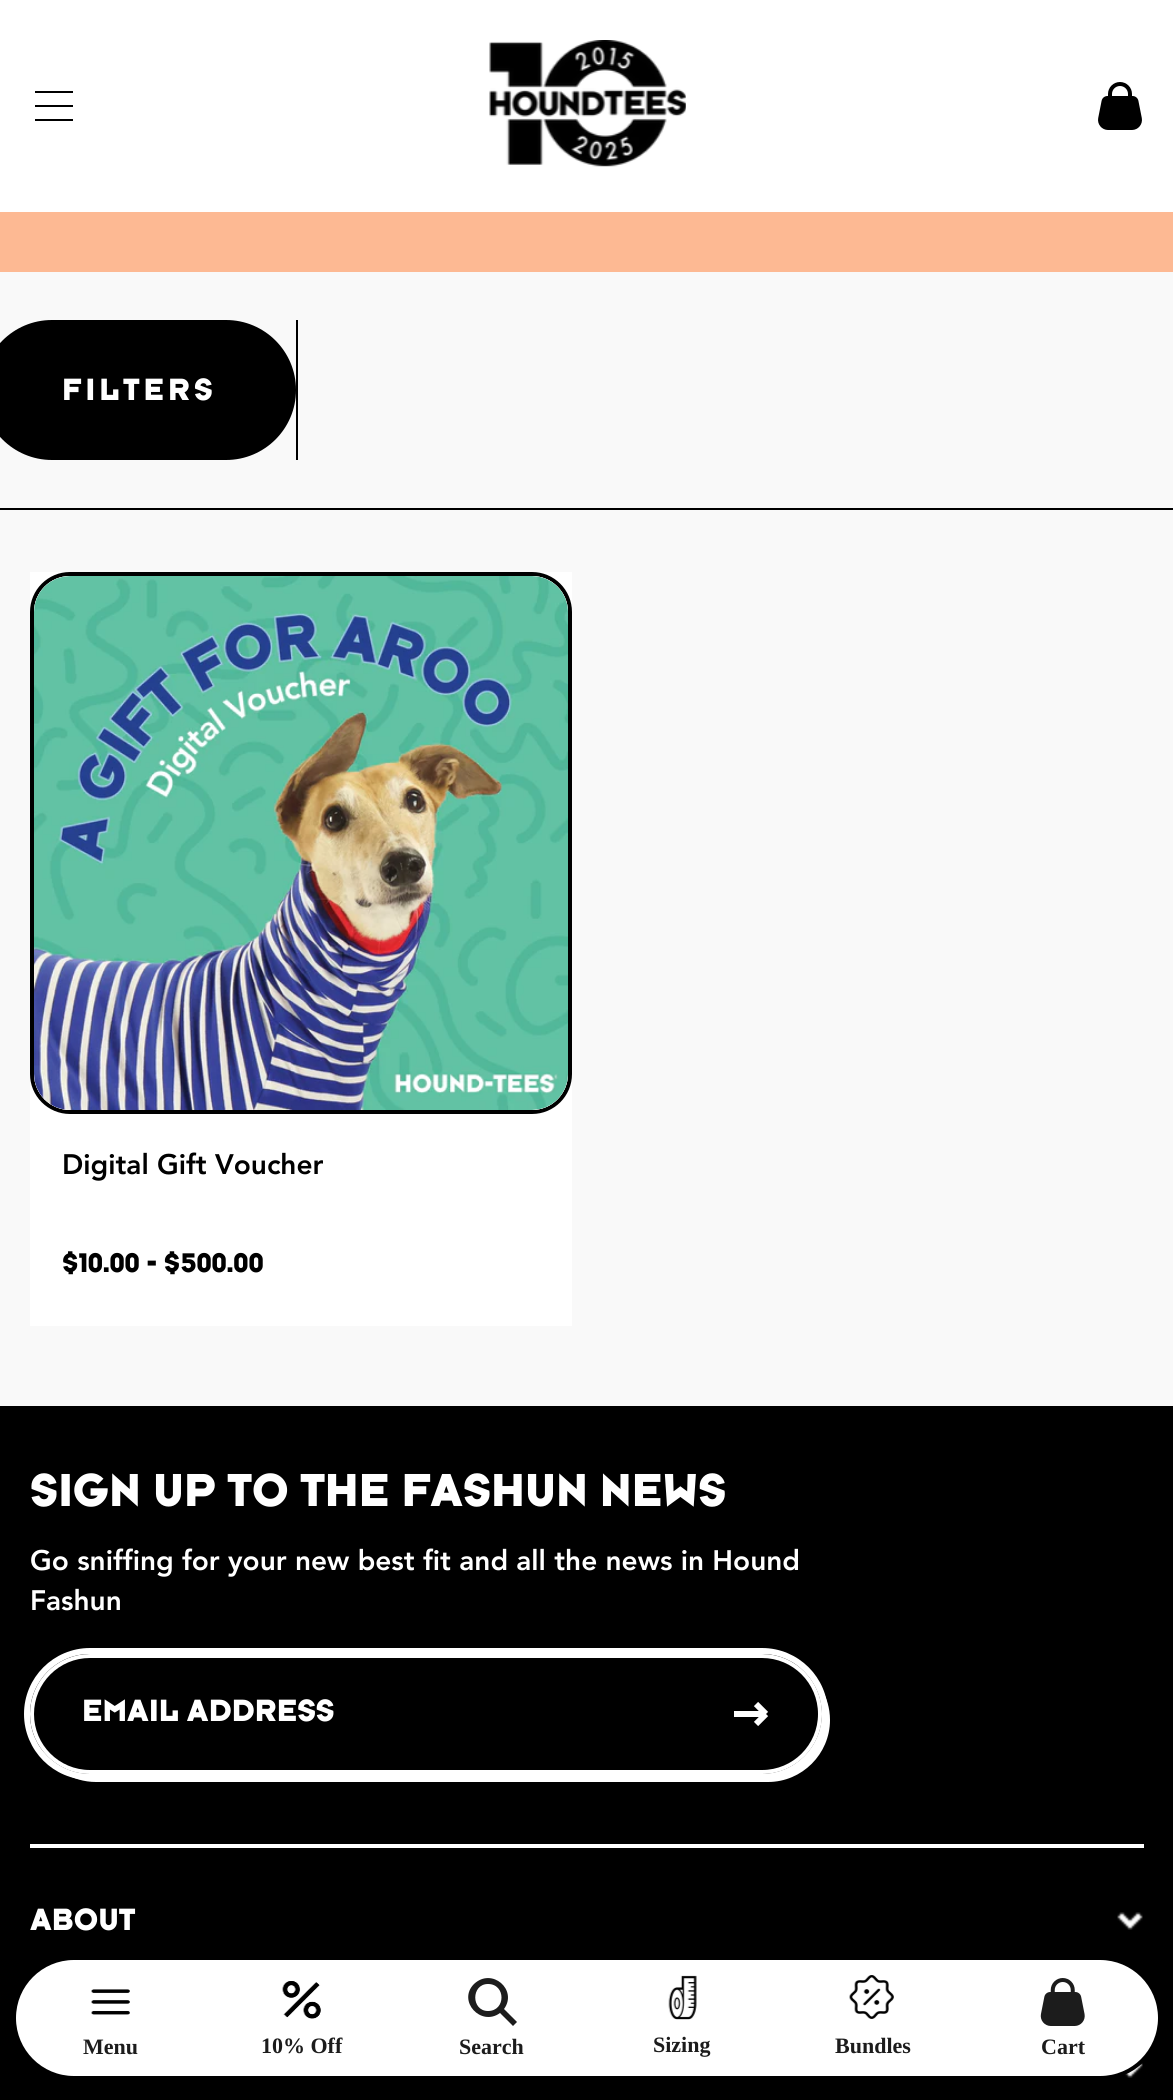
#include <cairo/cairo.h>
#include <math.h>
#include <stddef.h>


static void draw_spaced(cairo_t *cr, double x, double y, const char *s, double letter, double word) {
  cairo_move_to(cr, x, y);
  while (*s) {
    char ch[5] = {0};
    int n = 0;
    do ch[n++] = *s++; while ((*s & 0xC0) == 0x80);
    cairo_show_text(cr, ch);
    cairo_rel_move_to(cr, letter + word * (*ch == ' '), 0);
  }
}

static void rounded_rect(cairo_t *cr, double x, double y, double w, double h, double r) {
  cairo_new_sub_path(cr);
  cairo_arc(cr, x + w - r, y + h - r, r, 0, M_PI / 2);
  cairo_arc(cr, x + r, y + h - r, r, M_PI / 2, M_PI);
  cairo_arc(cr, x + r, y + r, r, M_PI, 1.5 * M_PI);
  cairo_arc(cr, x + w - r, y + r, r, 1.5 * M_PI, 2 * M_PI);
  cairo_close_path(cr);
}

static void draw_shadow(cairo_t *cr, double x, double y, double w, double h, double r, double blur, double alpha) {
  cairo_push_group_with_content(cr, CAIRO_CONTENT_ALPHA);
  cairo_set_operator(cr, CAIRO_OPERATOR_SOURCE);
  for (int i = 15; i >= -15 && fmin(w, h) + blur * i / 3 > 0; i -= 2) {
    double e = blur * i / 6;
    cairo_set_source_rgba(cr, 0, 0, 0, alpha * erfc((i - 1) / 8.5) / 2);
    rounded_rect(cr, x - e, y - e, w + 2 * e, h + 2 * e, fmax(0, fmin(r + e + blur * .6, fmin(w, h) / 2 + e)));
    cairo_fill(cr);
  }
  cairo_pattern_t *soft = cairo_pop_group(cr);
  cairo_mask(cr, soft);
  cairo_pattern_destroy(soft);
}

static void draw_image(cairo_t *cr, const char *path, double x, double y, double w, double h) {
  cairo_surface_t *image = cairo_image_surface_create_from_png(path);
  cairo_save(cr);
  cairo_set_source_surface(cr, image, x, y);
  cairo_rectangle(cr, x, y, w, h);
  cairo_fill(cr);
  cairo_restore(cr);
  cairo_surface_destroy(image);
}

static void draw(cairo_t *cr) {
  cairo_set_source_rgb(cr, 249 / 255.0, 249 / 255.0, 249 / 255.0);
  cairo_paint(cr);
  cairo_set_source_rgb(cr, 1, 1, 1);
  cairo_rectangle(cr, 0, 0, 1173, 212);
  cairo_fill(cr);
  draw_image(cr, "images/1.png", 35, 91, 38, 30);
  draw_image(cr, "images/2.png", 489, 40, 197, 127);
  draw_image(cr, "images/3.png", 1098, 82, 44, 48);
  cairo_set_source_rgb(cr, 253 / 255.0, 185 / 255.0, 147 / 255.0);
  cairo_rectangle(cr, 0, 212, 1173, 60);
  cairo_fill(cr);
  cairo_set_source_rgb(cr, 0, 0, 0);
  cairo_rectangle(cr, 0, 508, 1173, 2);
  cairo_fill(cr);
  cairo_rectangle(cr, 296, 320, 2, 140);
  cairo_fill(cr);
  rounded_rect(cr, -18, 320, 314, 140, 70);
  cairo_fill(cr);
  cairo_set_source_rgb(cr, 1, 1, 1);
  cairo_rectangle(cr, 30, 572, 542, 754);
  cairo_fill(cr);
  rounded_rect(cr, 32, 574, 538, 538, 38);
  cairo_set_source_rgb(cr, 0, 0, 0);
  cairo_set_line_width(cr, 4);
  cairo_stroke(cr);
  cairo_set_source_rgb(cr, 1, 1, 1);
  rounded_rect(cr, 34, 576, 534, 534, 36);
  cairo_fill(cr);
  draw_image(cr, "images/4.png", 34, 576, 534, 534);
  cairo_set_source_rgb(cr, 0, 0, 0);
  cairo_rectangle(cr, 0, 1406, 1173, 694);
  cairo_fill(cr);
  cairo_set_source_rgb(cr, 1, 1, 1);
  cairo_new_path(cr);
  cairo_move_to(cr, 41, 1749);
  cairo_curve_to(cr, 51, 1768, 72, 1782, 96, 1782);
  cairo_line_to(cr, 768, 1782);
  cairo_curve_to(cr, 802, 1782, 830, 1754, 830, 1720);
  cairo_curve_to(cr, 830, 1696, 816, 1675, 797, 1665);
  cairo_curve_to(cr, 812, 1676, 822, 1694, 822, 1714);
  cairo_curve_to(cr, 822, 1747, 795, 1774, 762, 1774);
  cairo_line_to(cr, 90, 1774);
  cairo_curve_to(cr, 70, 1774, 52, 1764, 41, 1749);
  cairo_close_path(cr);
  cairo_fill(cr);
  cairo_set_source_rgb(cr, 0, 0, 0);
  rounded_rect(cr, 32, 1656, 788, 116, 58);
  cairo_fill_preserve(cr);
  cairo_set_source_rgb(cr, 1, 1, 1);
  cairo_stroke(cr);
  rounded_rect(cr, 27, 1651, 798, 126, 63);
  cairo_set_line_width(cr, 6);
  cairo_stroke(cr);
  cairo_new_path(cr);
  cairo_move_to(cr, 756, 1704);
  cairo_line_to(cr, 766, 1714);
  cairo_move_to(cr, 766, 1714);
  cairo_line_to(cr, 756, 1724);
  cairo_move_to(cr, 766, 1714);
  cairo_line_to(cr, 734, 1714);
  cairo_stroke(cr);
  cairo_rectangle(cr, 30, 1844, 1114, 4);
  cairo_fill(cr);
  draw_image(cr, "images/5.png", 1117, 1912, 26, 18);
  draw_image(cr, "images/6.png", 1124, 2062, 19, 16);
  cairo_set_source_rgb(cr, 0, 0, 0);
  draw_shadow(cr, 12, 1952, 1150, 124, 62, 10, 0.1);
  cairo_set_source_rgb(cr, 1, 1, 1);
  rounded_rect(cr, 14, 1958, 1146, 120, 60);
  cairo_fill_preserve(cr);
  cairo_set_source_rgb(cr, 0, 0, 0);
  cairo_set_line_width(cr, 4);
  cairo_stroke(cr);
  draw_image(cr, "images/7.png", 91, 1989, 39, 26);
  draw_image(cr, "images/8.png", 91, 1989, 39, 26);
  draw_image(cr, "images/9.png", 282, 1981, 39, 38);
  draw_image(cr, "images/10.png", 282, 1981, 39, 38);
  cairo_set_source_rgb(cr, 28 / 255.0, 28 / 255.0, 28 / 255.0);
  cairo_new_path(cr);
  cairo_move_to(cr, 504, 2009);
  cairo_curve_to(cr, 518, 1990, 492, 1967, 474, 1984);
  cairo_curve_to(cr, 457, 2001, 481, 2027, 500, 2013);
  cairo_line_to(cr, 513, 2026);
  cairo_line_to(cr, 517, 2022);
  cairo_close_path(cr);
  cairo_move_to(cr, 488, 2011);
  cairo_curve_to(cr, 471, 2011, 471, 1984, 488, 1984);
  cairo_curve_to(cr, 506, 1984, 506, 2011, 488, 2011);
  cairo_close_path(cr);
  cairo_fill(cr);
  draw_image(cr, "images/11.png", 668, 1975, 29, 45);
  draw_image(cr, "images/12.png", 849, 1975, 45, 44);
  draw_image(cr, "images/13.png", 849, 1975, 45, 44);
  draw_image(cr, "images/14.png", 1040, 1978, 45, 48);
  cairo_select_font_face(cr, "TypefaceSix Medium", CAIRO_FONT_SLANT_NORMAL, CAIRO_FONT_WEIGHT_NORMAL);
  cairo_set_font_size(cr, 32);
  cairo_set_source_rgb(cr, 1, 1, 1);
  draw_spaced(cr, 62, 400, "FILTERS", 4, 0);
  cairo_select_font_face(cr, "Avenir Black", CAIRO_FONT_SLANT_NORMAL, CAIRO_FONT_WEIGHT_NORMAL);
  cairo_set_font_size(cr, 28);
  cairo_set_source_rgb(cr, 0, 0, 0);
  cairo_move_to(cr, 62, 1174);
  cairo_show_text(cr, "Digital Gift Voucher");
  cairo_select_font_face(cr, "TypefaceSix Medium", CAIRO_FONT_SLANT_NORMAL, CAIRO_FONT_WEIGHT_NORMAL);
  cairo_move_to(cr, 62, 1272);
  cairo_show_text(cr, "$10.00 - $500.00");
  cairo_set_font_size(cr, 48);
  cairo_set_source_rgb(cr, 1, 1, 1);
  cairo_move_to(cr, 30, 1506);
  cairo_show_text(cr, "SIGN UP TO THE FASHUN NEWS");
  cairo_select_font_face(cr, "Avenir Black", CAIRO_FONT_SLANT_NORMAL, CAIRO_FONT_WEIGHT_NORMAL);
  cairo_set_font_size(cr, 28);
  cairo_move_to(cr, 30, 1570);
  cairo_show_text(cr, "Go sniffing for your new best fit and all the news in Hound");
  cairo_move_to(cr, 30, 1610);
  cairo_show_text(cr, "Fashun");
  cairo_select_font_face(cr, "TypefaceSix Medium", CAIRO_FONT_SLANT_NORMAL, CAIRO_FONT_WEIGHT_NORMAL);
  cairo_set_font_size(cr, 32);
  cairo_move_to(cr, 82, 1721);
  cairo_show_text(cr, "EMAIL ADDRESS");
  cairo_move_to(cr, 30, 1930);
  cairo_show_text(cr, "ABOUT");
  cairo_select_font_face(cr, "Liberation Serif", CAIRO_FONT_SLANT_NORMAL, CAIRO_FONT_WEIGHT_BOLD);
  cairo_set_font_size(cr, 22);
  cairo_set_source_rgb(cr, 28 / 255.0, 28 / 255.0, 28 / 255.0);
  cairo_move_to(cr, 83, 2054);
  cairo_show_text(cr, "Menu");
  cairo_move_to(cr, 261, 2053);
  cairo_show_text(cr, "10% Off");
  cairo_move_to(cr, 459, 2054);
  cairo_show_text(cr, "Search");
  cairo_move_to(cr, 653, 2052);
  cairo_show_text(cr, "Sizing");
  cairo_move_to(cr, 835, 2053);
  cairo_show_text(cr, "Bundles");
  cairo_move_to(cr, 1041, 2054);
  cairo_show_text(cr, "Cart");
}

int main(void) {
  cairo_surface_t *surface = cairo_image_surface_create(CAIRO_FORMAT_RGB24, 1173, 2100);
  cairo_t *cr = cairo_create(surface);
  cairo_font_options_t *options = cairo_font_options_create();
  cairo_font_options_set_hint_metrics(options, CAIRO_HINT_METRICS_OFF);
  cairo_font_options_set_hint_style(options, CAIRO_HINT_STYLE_NONE);
  cairo_set_font_options(cr, options);
  cairo_set_miter_limit(cr, 4);
  draw(cr);
  cairo_surface_write_to_png(surface, "out.png");
  cairo_font_options_destroy(options);
  cairo_destroy(cr);
  cairo_surface_destroy(surface);
  return 0;
}
